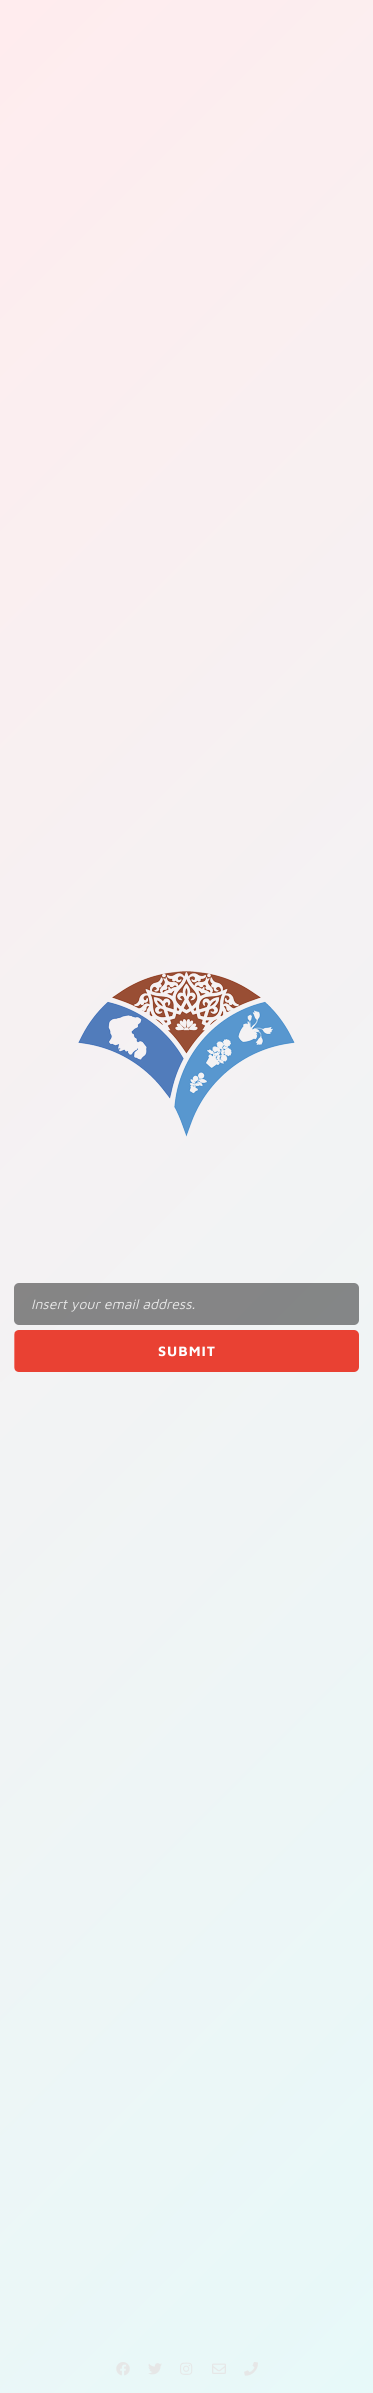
#include <cairo/cairo.h>
#include <math.h>
#include <stddef.h>


static void draw_spaced(cairo_t *cr, double x, double y, const char *s, double letter, double word) {
  cairo_move_to(cr, x, y);
  while (*s) {
    char ch[5] = {0};
    int n = 0;
    do ch[n++] = *s++; while ((*s & 0xC0) == 0x80);
    cairo_show_text(cr, ch);
    cairo_rel_move_to(cr, letter + word * (*ch == ' '), 0);
  }
}

static void rounded_rect(cairo_t *cr, double x, double y, double w, double h, double r) {
  cairo_new_sub_path(cr);
  cairo_arc(cr, x + w - r, y + h - r, r, 0, M_PI / 2);
  cairo_arc(cr, x + r, y + h - r, r, M_PI / 2, M_PI);
  cairo_arc(cr, x + r, y + r, r, M_PI, 1.5 * M_PI);
  cairo_arc(cr, x + w - r, y + r, r, 1.5 * M_PI, 2 * M_PI);
  cairo_close_path(cr);
}

static void draw_image(cairo_t *cr, const char *path, double x, double y, double w, double h) {
  cairo_surface_t *image = cairo_image_surface_create_from_png(path);
  cairo_save(cr);
  cairo_set_source_surface(cr, image, x, y);
  cairo_rectangle(cr, x, y, w, h);
  cairo_fill(cr);
  cairo_restore(cr);
  cairo_surface_destroy(image);
}

static void draw(cairo_t *cr) {
  cairo_pattern_t *gradient;
  cairo_set_source_rgb(cr, 1, 1, 1);
  cairo_paint(cr);
  gradient = cairo_pattern_create_linear(-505, 505, 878, 1888);
  cairo_pattern_add_color_stop_rgba(gradient, 0, 1, 236 / 255.0, 238 / 255.0, 1);
  cairo_pattern_add_color_stop_rgba(gradient, 1, 231 / 255.0, 249 / 255.0, 249 / 255.0, 1);
  cairo_set_source(cr, gradient);
  cairo_pattern_destroy(gradient);
  cairo_rectangle(cr, 0, 0, 373, 2393);
  cairo_fill(cr);
  draw_image(cr, "images/1.png", 78, 971, 217, 166);
  cairo_set_source_rgba(cr, 0, 0, 0, 0.45);
  rounded_rect(cr, 14, 1283, 345, 42, 5);
  cairo_fill(cr);
  cairo_set_source_rgba(cr, 232 / 255.0, 46 / 255.0, 30 / 255.0, 0.9);
  rounded_rect(cr, 14, 1330, 345, 42, 5);
  cairo_fill(cr);
  cairo_set_source_rgba(cr, 254 / 255.0, 254 / 255.0, 254 / 255.0, 0.3);
  cairo_rectangle(cr, 14, 1333, 1, 37);
  cairo_fill(cr);
  draw_image(cr, "images/2.png", 116, 2362, 14, 14);
  draw_image(cr, "images/3.png", 148, 2363, 14, 12);
  draw_image(cr, "images/4.png", 180, 2362, 13, 13);
  draw_image(cr, "images/5.png", 212, 2363, 14, 11);
  draw_image(cr, "images/6.png", 244, 2362, 14, 14);
  cairo_select_font_face(cr, "Maven Pro", CAIRO_FONT_SLANT_ITALIC, CAIRO_FONT_WEIGHT_NORMAL);
  cairo_set_font_size(cr, 14);
  cairo_set_source_rgb(cr, 231 / 255.0, 231 / 255.0, 231 / 255.0);
  cairo_move_to(cr, 31, 1309);
  cairo_show_text(cr, "Insert your email address.");
  cairo_select_font_face(cr, "Maven Pro", CAIRO_FONT_SLANT_NORMAL, CAIRO_FONT_WEIGHT_BOLD);
  cairo_set_source_rgb(cr, 254 / 255.0, 254 / 255.0, 254 / 255.0);
  draw_spaced(cr, 158, 1356, "SUBMIT", 1, 0);
}

int main(void) {
  cairo_surface_t *surface = cairo_image_surface_create(CAIRO_FORMAT_RGB24, 373, 2393);
  cairo_t *cr = cairo_create(surface);
  cairo_font_options_t *options = cairo_font_options_create();
  cairo_font_options_set_hint_metrics(options, CAIRO_HINT_METRICS_OFF);
  cairo_font_options_set_hint_style(options, CAIRO_HINT_STYLE_NONE);
  cairo_set_font_options(cr, options);
  cairo_set_miter_limit(cr, 4);
  draw(cr);
  cairo_surface_write_to_png(surface, "out.png");
  cairo_font_options_destroy(options);
  cairo_destroy(cr);
  cairo_surface_destroy(surface);
  return 0;
}
